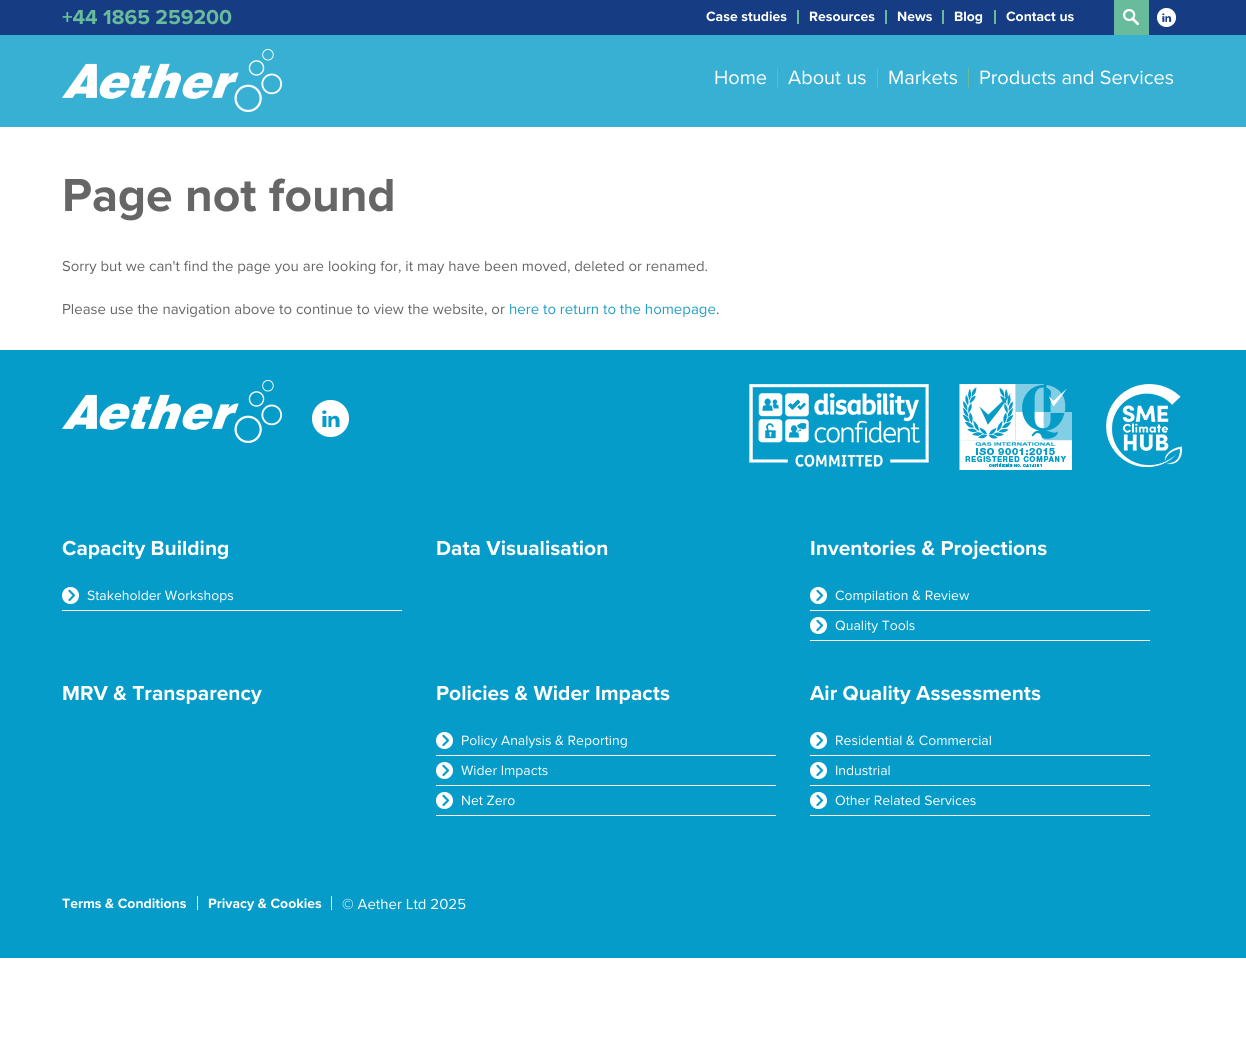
#include <cairo/cairo.h>
#include <math.h>
#include <stddef.h>


static void draw_image(cairo_t *cr, const char *path, double x, double y, double w, double h) {
  cairo_surface_t *image = cairo_image_surface_create_from_png(path);
  cairo_save(cr);
  cairo_set_source_surface(cr, image, x, y);
  cairo_rectangle(cr, x, y, w, h);
  cairo_fill(cr);
  cairo_restore(cr);
  cairo_surface_destroy(image);
}

static void draw(cairo_t *cr) {
  cairo_set_source_rgb(cr, 1, 1, 1);
  cairo_paint(cr);
  cairo_set_source_rgb(cr, 22 / 255.0, 61 / 255.0, 132 / 255.0);
  cairo_rectangle(cr, 0, 0, 1114, 35);
  cairo_fill(cr);
  cairo_set_source_rgb(cr, 104 / 255.0, 188 / 255.0, 156 / 255.0);
  cairo_rectangle(cr, 1114, 0, 35, 35);
  cairo_fill(cr);
  draw_image(cr, "images/1.png", 1123, 9, 16, 16);
  cairo_set_source_rgb(cr, 22 / 255.0, 61 / 255.0, 132 / 255.0);
  cairo_rectangle(cr, 1149, 0, 97, 35);
  cairo_fill(cr);
  cairo_set_source_rgb(cr, 104 / 255.0, 188 / 255.0, 156 / 255.0);
  cairo_rectangle(cr, 797, 10, 2, 14);
  cairo_fill(cr);
  cairo_rectangle(cr, 885, 10, 2, 14);
  cairo_fill(cr);
  cairo_rectangle(cr, 942, 10, 2, 14);
  cairo_fill(cr);
  cairo_rectangle(cr, 994, 10, 2, 14);
  cairo_fill(cr);
  draw_image(cr, "images/2.png", 1157, 8, 19, 19);
  cairo_set_source_rgb(cr, 55 / 255.0, 176 / 255.0, 212 / 255.0);
  cairo_rectangle(cr, 0, 35, 1246, 92);
  cairo_fill(cr);
  draw_image(cr, "images/3.png", 62, 49, 220, 63);
  cairo_set_source_rgb(cr, 104 / 255.0, 188 / 255.0, 156 / 255.0);
  cairo_rectangle(cr, 777, 68, 1, 20);
  cairo_fill(cr);
  cairo_rectangle(cr, 877, 68, 1, 20);
  cairo_fill(cr);
  cairo_rectangle(cr, 968, 68, 1, 20);
  cairo_fill(cr);
  cairo_set_source_rgb(cr, 5 / 255.0, 156 / 255.0, 201 / 255.0);
  cairo_rectangle(cr, 0, 350, 1246, 608);
  cairo_fill(cr);
  draw_image(cr, "images/4.png", 62, 380, 220, 63);
  draw_image(cr, "images/5.png", 312, 400, 37, 37);
  draw_image(cr, "images/6.png", 749, 384, 180, 83);
  draw_image(cr, "images/7.png", 959, 384, 113, 86);
  draw_image(cr, "images/8.png", 1106, 384, 76, 83);
  draw_image(cr, "images/9.png", 62, 587, 17, 17);
  cairo_set_source_rgb(cr, 1, 1, 1);
  cairo_rectangle(cr, 62, 610, 340, 1);
  cairo_fill(cr);
  draw_image(cr, "images/9.png", 810, 587, 17, 17);
  cairo_rectangle(cr, 810, 610, 340, 1);
  cairo_fill(cr);
  draw_image(cr, "images/9.png", 810, 617, 17, 17);
  cairo_rectangle(cr, 810, 640, 340, 1);
  cairo_fill(cr);
  draw_image(cr, "images/9.png", 436, 732, 17, 17);
  cairo_rectangle(cr, 436, 755, 340, 1);
  cairo_fill(cr);
  draw_image(cr, "images/9.png", 436, 762, 17, 17);
  cairo_rectangle(cr, 436, 785, 340, 1);
  cairo_fill(cr);
  draw_image(cr, "images/9.png", 436, 792, 17, 17);
  cairo_rectangle(cr, 436, 815, 340, 1);
  cairo_fill(cr);
  draw_image(cr, "images/9.png", 810, 732, 17, 17);
  cairo_rectangle(cr, 810, 755, 340, 1);
  cairo_fill(cr);
  draw_image(cr, "images/9.png", 810, 762, 17, 17);
  cairo_rectangle(cr, 810, 785, 340, 1);
  cairo_fill(cr);
  draw_image(cr, "images/9.png", 810, 792, 17, 17);
  cairo_rectangle(cr, 810, 815, 340, 1);
  cairo_fill(cr);
  cairo_rectangle(cr, 197, 896, 1, 14);
  cairo_fill(cr);
  cairo_rectangle(cr, 331, 896, 1, 14);
  cairo_fill(cr);
  cairo_select_font_face(cr, "Proxima Nova", CAIRO_FONT_SLANT_NORMAL, CAIRO_FONT_WEIGHT_BOLD);
  cairo_set_font_size(cr, 21);
  cairo_set_source_rgb(cr, 104 / 255.0, 188 / 255.0, 156 / 255.0);
  cairo_move_to(cr, 62, 24);
  cairo_show_text(cr, "+44 1865 259200");
  cairo_set_font_size(cr, 14);
  cairo_set_source_rgb(cr, 1, 1, 1);
  cairo_move_to(cr, 706, 21);
  cairo_show_text(cr, "Case studies");
  cairo_move_to(cr, 809, 21);
  cairo_show_text(cr, "Resources");
  cairo_move_to(cr, 897, 21);
  cairo_show_text(cr, "News");
  cairo_move_to(cr, 954, 21);
  cairo_show_text(cr, "Blog");
  cairo_move_to(cr, 1006, 21);
  cairo_show_text(cr, "Contact us");
  cairo_select_font_face(cr, "Proxima Nova", CAIRO_FONT_SLANT_NORMAL, CAIRO_FONT_WEIGHT_NORMAL);
  cairo_set_font_size(cr, 20);
  cairo_move_to(cr, 714, 84);
  cairo_show_text(cr, "Home");
  cairo_move_to(cr, 788, 84);
  cairo_show_text(cr, "About us");
  cairo_move_to(cr, 888, 84);
  cairo_show_text(cr, "Markets");
  cairo_move_to(cr, 979, 84);
  cairo_show_text(cr, "Products and Services");
  cairo_select_font_face(cr, "Proxima Nova", CAIRO_FONT_SLANT_NORMAL, CAIRO_FONT_WEIGHT_BOLD);
  cairo_set_font_size(cr, 48);
  cairo_set_source_rgb(cr, 102 / 255.0, 102 / 255.0, 102 / 255.0);
  cairo_move_to(cr, 62, 211);
  cairo_show_text(cr, "Page not found");
  cairo_select_font_face(cr, "Proxima Nova", CAIRO_FONT_SLANT_NORMAL, CAIRO_FONT_WEIGHT_NORMAL);
  cairo_set_font_size(cr, 15);
  cairo_move_to(cr, 62, 271);
  cairo_show_text(cr, "Sorry but we can't find the page you are looking for, it may have been moved, deleted or renamed.");
  cairo_move_to(cr, 62, 314);
  cairo_show_text(cr, "Please use the navigation above to continue to view the website, or");
  cairo_set_source_rgb(cr, 32 / 255.0, 159 / 255.0, 198 / 255.0);
  cairo_move_to(cr, 509, 314);
  cairo_show_text(cr, "here to return to the homepage");
  cairo_set_source_rgb(cr, 102 / 255.0, 102 / 255.0, 102 / 255.0);
  cairo_move_to(cr, 716, 314);
  cairo_show_text(cr, ".");
  cairo_select_font_face(cr, "Proxima Nova", CAIRO_FONT_SLANT_NORMAL, CAIRO_FONT_WEIGHT_BOLD);
  cairo_set_font_size(cr, 21);
  cairo_set_source_rgb(cr, 1, 1, 1);
  cairo_move_to(cr, 62, 555);
  cairo_show_text(cr, "Capacity Building");
  cairo_select_font_face(cr, "Proxima Nova", CAIRO_FONT_SLANT_NORMAL, CAIRO_FONT_WEIGHT_NORMAL);
  cairo_set_font_size(cr, 14);
  cairo_move_to(cr, 87, 600);
  cairo_show_text(cr, "Stakeholder Workshops");
  cairo_select_font_face(cr, "Proxima Nova", CAIRO_FONT_SLANT_NORMAL, CAIRO_FONT_WEIGHT_BOLD);
  cairo_set_font_size(cr, 21);
  cairo_move_to(cr, 436, 555);
  cairo_show_text(cr, "Data Visualisation");
  cairo_move_to(cr, 810, 555);
  cairo_show_text(cr, "Inventories & Projections");
  cairo_select_font_face(cr, "Proxima Nova", CAIRO_FONT_SLANT_NORMAL, CAIRO_FONT_WEIGHT_NORMAL);
  cairo_set_font_size(cr, 14);
  cairo_move_to(cr, 835, 600);
  cairo_show_text(cr, "Compilation & Review");
  cairo_move_to(cr, 835, 630);
  cairo_show_text(cr, "Quality Tools");
  cairo_select_font_face(cr, "Proxima Nova", CAIRO_FONT_SLANT_NORMAL, CAIRO_FONT_WEIGHT_BOLD);
  cairo_set_font_size(cr, 21);
  cairo_move_to(cr, 62, 700);
  cairo_show_text(cr, "MRV & Transparency");
  cairo_move_to(cr, 436, 700);
  cairo_show_text(cr, "Policies & Wider Impacts");
  cairo_select_font_face(cr, "Proxima Nova", CAIRO_FONT_SLANT_NORMAL, CAIRO_FONT_WEIGHT_NORMAL);
  cairo_set_font_size(cr, 14);
  cairo_move_to(cr, 461, 745);
  cairo_show_text(cr, "Policy Analysis & Reporting");
  cairo_move_to(cr, 461, 775);
  cairo_show_text(cr, "Wider Impacts");
  cairo_move_to(cr, 461, 805);
  cairo_show_text(cr, "Net Zero");
  cairo_select_font_face(cr, "Proxima Nova", CAIRO_FONT_SLANT_NORMAL, CAIRO_FONT_WEIGHT_BOLD);
  cairo_set_font_size(cr, 21);
  cairo_move_to(cr, 810, 700);
  cairo_show_text(cr, "Air Quality Assessments");
  cairo_select_font_face(cr, "Proxima Nova", CAIRO_FONT_SLANT_NORMAL, CAIRO_FONT_WEIGHT_NORMAL);
  cairo_set_font_size(cr, 14);
  cairo_move_to(cr, 835, 745);
  cairo_show_text(cr, "Residential & Commercial");
  cairo_move_to(cr, 835, 775);
  cairo_show_text(cr, "Industrial");
  cairo_move_to(cr, 835, 805);
  cairo_show_text(cr, "Other Related Services");
  cairo_select_font_face(cr, "Proxima Nova", CAIRO_FONT_SLANT_NORMAL, CAIRO_FONT_WEIGHT_BOLD);
  cairo_move_to(cr, 62, 908);
  cairo_show_text(cr, "Terms & Conditions");
  cairo_move_to(cr, 208, 908);
  cairo_show_text(cr, "Privacy & Cookies");
  cairo_select_font_face(cr, "Proxima Nova", CAIRO_FONT_SLANT_NORMAL, CAIRO_FONT_WEIGHT_NORMAL);
  cairo_set_font_size(cr, 15);
  cairo_move_to(cr, 342, 909);
  cairo_show_text(cr, "© Aether Ltd 2025");
}

int main(void) {
  cairo_surface_t *surface = cairo_image_surface_create(CAIRO_FORMAT_RGB24, 1246, 1054);
  cairo_t *cr = cairo_create(surface);
  cairo_font_options_t *options = cairo_font_options_create();
  cairo_font_options_set_hint_metrics(options, CAIRO_HINT_METRICS_OFF);
  cairo_font_options_set_hint_style(options, CAIRO_HINT_STYLE_NONE);
  cairo_set_font_options(cr, options);
  cairo_set_miter_limit(cr, 4);
  draw(cr);
  cairo_surface_write_to_png(surface, "out.png");
  cairo_font_options_destroy(options);
  cairo_destroy(cr);
  cairo_surface_destroy(surface);
  return 0;
}
